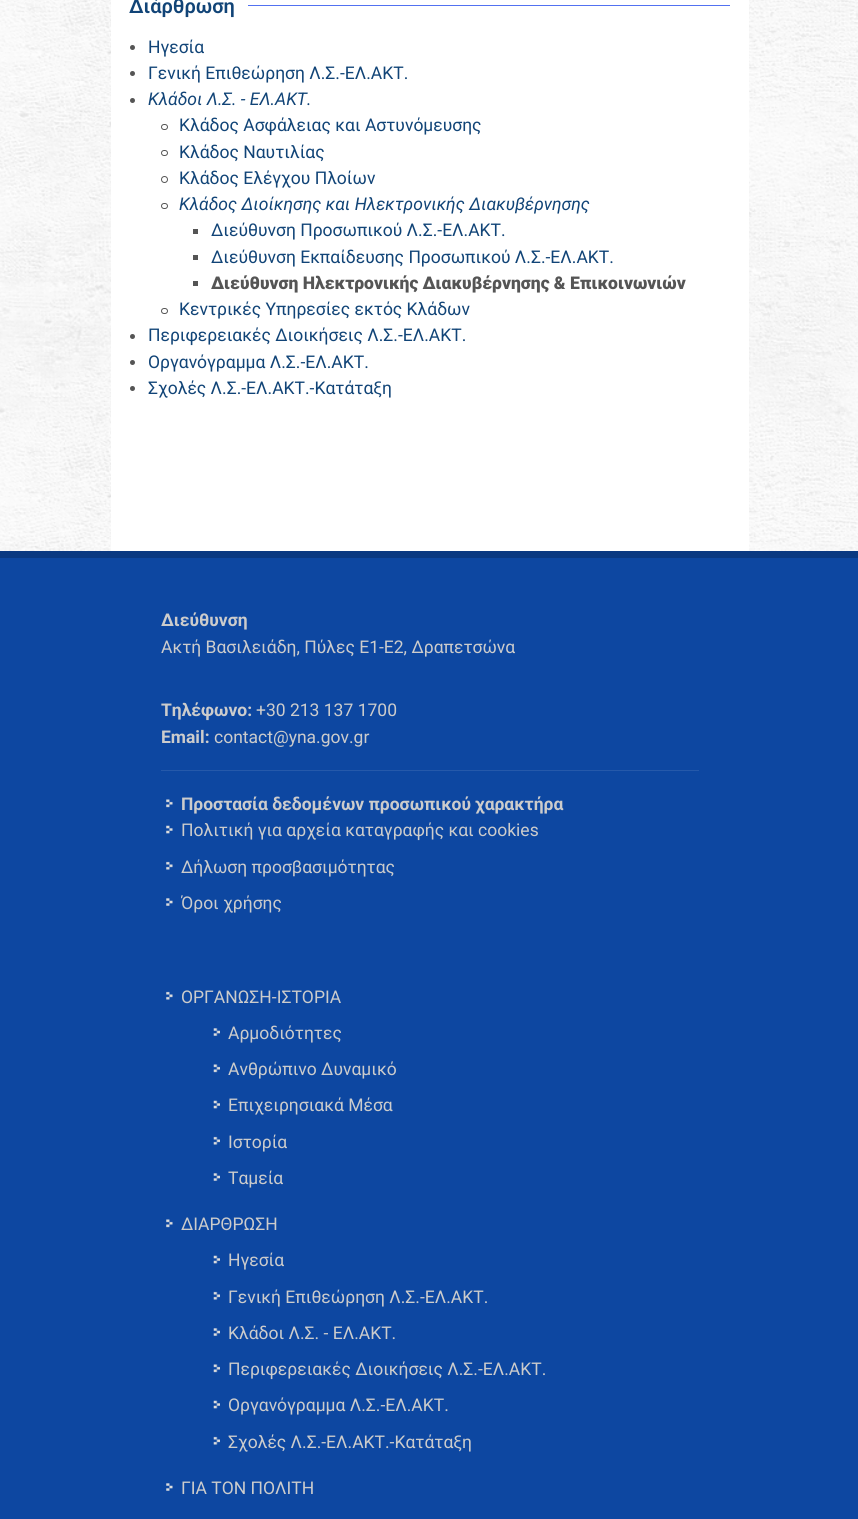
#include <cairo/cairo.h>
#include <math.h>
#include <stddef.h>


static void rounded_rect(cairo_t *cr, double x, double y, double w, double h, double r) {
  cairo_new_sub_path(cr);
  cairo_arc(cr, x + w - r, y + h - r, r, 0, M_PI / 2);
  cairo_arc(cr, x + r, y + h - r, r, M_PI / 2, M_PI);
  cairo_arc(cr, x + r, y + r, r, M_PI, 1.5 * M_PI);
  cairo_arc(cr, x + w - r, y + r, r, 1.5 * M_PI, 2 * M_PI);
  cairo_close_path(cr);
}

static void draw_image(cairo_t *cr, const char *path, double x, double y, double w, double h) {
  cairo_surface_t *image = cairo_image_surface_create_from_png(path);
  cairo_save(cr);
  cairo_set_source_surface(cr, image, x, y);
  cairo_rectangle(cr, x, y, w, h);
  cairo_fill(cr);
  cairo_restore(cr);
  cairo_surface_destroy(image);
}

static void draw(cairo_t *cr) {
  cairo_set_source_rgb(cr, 1, 1, 1);
  cairo_paint(cr);
  draw_image(cr, "images/1.png", 0, 0, 858, 551);
  cairo_set_source_rgb(cr, 1, 1, 1);
  cairo_rectangle(cr, 111, 0, 638, 551);
  cairo_fill(cr);
  cairo_set_source_rgb(cr, 82 / 255.0, 113 / 255.0, 241 / 255.0);
  cairo_rectangle(cr, 248, 5, 482, 1);
  cairo_fill(cr);
  cairo_set_source_rgb(cr, 85 / 255.0, 85 / 255.0, 85 / 255.0);
  cairo_arc(cr, 132.5, 47.5, 2.5, 0, 2 * M_PI);
  cairo_fill(cr);
  cairo_arc(cr, 132.5, 73.5, 2.5, 0, 2 * M_PI);
  cairo_fill(cr);
  cairo_arc(cr, 132.5, 100.5, 2.5, 0, 2 * M_PI);
  cairo_fill(cr);
  rounded_rect(cr, 161.5, 124.5, 6, 5, 2.5);
  cairo_set_line_width(cr, 1);
  cairo_stroke(cr);
  rounded_rect(cr, 161.5, 150.5, 6, 5, 2.5);
  cairo_stroke(cr);
  cairo_arc(cr, 164.5, 179.5, 3, 0, 2 * M_PI);
  cairo_stroke(cr);
  rounded_rect(cr, 161.5, 203.5, 6, 5, 2.5);
  cairo_stroke(cr);
  cairo_rectangle(cr, 193, 229, 5, 5);
  cairo_fill(cr);
  cairo_rectangle(cr, 193, 255, 5, 5);
  cairo_fill(cr);
  cairo_rectangle(cr, 193, 281, 5, 5);
  cairo_fill(cr);
  rounded_rect(cr, 161.5, 308.5, 6, 5, 2.5);
  cairo_stroke(cr);
  cairo_arc(cr, 132.5, 336.5, 2.5, 0, 2 * M_PI);
  cairo_fill(cr);
  cairo_arc(cr, 132.5, 362.5, 2.5, 0, 2 * M_PI);
  cairo_fill(cr);
  cairo_arc(cr, 132.5, 388.5, 2.5, 0, 2 * M_PI);
  cairo_fill(cr);
  cairo_set_source_rgb(cr, 13 / 255.0, 71 / 255.0, 161 / 255.0);
  cairo_rectangle(cr, 0, 558, 858, 961);
  cairo_fill(cr);
  cairo_set_source_rgb(cr, 10 / 255.0, 57 / 255.0, 129 / 255.0);
  cairo_rectangle(cr, 0, 551, 858, 7);
  cairo_fill(cr);
  cairo_set_source_rgb(cr, 37 / 255.0, 89 / 255.0, 170 / 255.0);
  cairo_rectangle(cr, 161, 770, 538, 1);
  cairo_fill(cr);
  draw_image(cr, "images/2.png", 166, 799, 7, 9);
  draw_image(cr, "images/3.png", 166, 825, 7, 9);
  draw_image(cr, "images/4.png", 166, 861, 7, 9);
  draw_image(cr, "images/5.png", 166, 898, 7, 8);
  draw_image(cr, "images/4.png", 166, 991, 7, 9);
  draw_image(cr, "images/6.png", 213, 1028, 7, 8);
  draw_image(cr, "images/7.png", 213, 1064, 7, 9);
  draw_image(cr, "images/8.png", 213, 1100, 7, 9);
  draw_image(cr, "images/9.png", 213, 1136, 7, 9);
  draw_image(cr, "images/6.png", 213, 1173, 7, 8);
  draw_image(cr, "images/2.png", 166, 1219, 7, 9);
  draw_image(cr, "images/8.png", 213, 1255, 7, 9);
  draw_image(cr, "images/9.png", 213, 1291, 7, 9);
  draw_image(cr, "images/6.png", 213, 1328, 7, 8);
  draw_image(cr, "images/7.png", 213, 1364, 7, 9);
  draw_image(cr, "images/8.png", 213, 1400, 7, 9);
  draw_image(cr, "images/9.png", 213, 1436, 7, 9);
  draw_image(cr, "images/5.png", 166, 1483, 7, 8);
  cairo_select_font_face(cr, "Roboto SemiBold", CAIRO_FONT_SLANT_NORMAL, CAIRO_FONT_WEIGHT_NORMAL);
  cairo_set_font_size(cr, 20);
  cairo_set_source_rgb(cr, 17 / 255.0, 68 / 255.0, 119 / 255.0);
  cairo_move_to(cr, 129, 13);
  cairo_show_text(cr, "Διάρθρωση");
  cairo_select_font_face(cr, "Roboto", CAIRO_FONT_SLANT_NORMAL, CAIRO_FONT_WEIGHT_NORMAL);
  cairo_set_font_size(cr, 17.5);
  cairo_move_to(cr, 148, 53);
  cairo_show_text(cr, "Ηγεσία");
  cairo_move_to(cr, 148, 79);
  cairo_show_text(cr, "Γενική Επιθεώρηση Λ.Σ.-ΕΛ.ΑΚΤ.");
  cairo_select_font_face(cr, "Roboto", CAIRO_FONT_SLANT_ITALIC, CAIRO_FONT_WEIGHT_NORMAL);
  cairo_move_to(cr, 148, 105);
  cairo_show_text(cr, "Κλάδοι Λ.Σ. - ΕΛ.ΑΚΤ.");
  cairo_select_font_face(cr, "Roboto", CAIRO_FONT_SLANT_NORMAL, CAIRO_FONT_WEIGHT_NORMAL);
  cairo_move_to(cr, 179, 131);
  cairo_show_text(cr, "Κλάδος Ασφάλειας και Αστυνόμευσης");
  cairo_move_to(cr, 179, 158);
  cairo_show_text(cr, "Κλάδος Ναυτιλίας");
  cairo_move_to(cr, 179, 184);
  cairo_show_text(cr, "Κλάδος Ελέγχου Πλοίων");
  cairo_select_font_face(cr, "Roboto", CAIRO_FONT_SLANT_ITALIC, CAIRO_FONT_WEIGHT_NORMAL);
  cairo_move_to(cr, 179, 210);
  cairo_show_text(cr, "Κλάδος Διοίκησης και Ηλεκτρονικής Διακυβέρνησης");
  cairo_select_font_face(cr, "Roboto", CAIRO_FONT_SLANT_NORMAL, CAIRO_FONT_WEIGHT_NORMAL);
  cairo_move_to(cr, 211, 236);
  cairo_show_text(cr, "Διεύθυνση Προσωπικού Λ.Σ.-ΕΛ.ΑΚΤ.");
  cairo_move_to(cr, 211, 263);
  cairo_show_text(cr, "Διεύθυνση Εκπαίδευσης Προσωπικού Λ.Σ.-ΕΛ.ΑΚΤ.");
  cairo_select_font_face(cr, "Roboto Black", CAIRO_FONT_SLANT_NORMAL, CAIRO_FONT_WEIGHT_NORMAL);
  cairo_set_source_rgb(cr, 85 / 255.0, 85 / 255.0, 85 / 255.0);
  cairo_move_to(cr, 211, 289);
  cairo_show_text(cr, "Διεύθυνση Ηλεκτρονικής Διακυβέρνησης & Επικοινωνιών");
  cairo_select_font_face(cr, "Roboto", CAIRO_FONT_SLANT_NORMAL, CAIRO_FONT_WEIGHT_NORMAL);
  cairo_set_source_rgb(cr, 17 / 255.0, 68 / 255.0, 119 / 255.0);
  cairo_move_to(cr, 179, 315);
  cairo_show_text(cr, "Κεντρικές Υπηρεσίες εκτός Κλάδων");
  cairo_move_to(cr, 148, 341);
  cairo_show_text(cr, "Περιφερειακές Διοικήσεις Λ.Σ.-ΕΛ.ΑΚΤ.");
  cairo_move_to(cr, 148, 368);
  cairo_show_text(cr, "Οργανόγραμμα Λ.Σ.-ΕΛ.ΑΚΤ.");
  cairo_move_to(cr, 148, 394);
  cairo_show_text(cr, "Σχολές Λ.Σ.-ΕΛ.ΑΚΤ.-Κατάταξη");
  cairo_select_font_face(cr, "Roboto", CAIRO_FONT_SLANT_NORMAL, CAIRO_FONT_WEIGHT_BOLD);
  cairo_set_source_rgb(cr, 204 / 255.0, 204 / 255.0, 204 / 255.0);
  cairo_move_to(cr, 161, 626);
  cairo_show_text(cr, "Διεύθυνση");
  cairo_select_font_face(cr, "Roboto", CAIRO_FONT_SLANT_NORMAL, CAIRO_FONT_WEIGHT_NORMAL);
  cairo_move_to(cr, 161, 653);
  cairo_show_text(cr, "Ακτή Βασιλειάδη, Πύλες Ε1-Ε2, Δραπετσώνα");
  cairo_select_font_face(cr, "Roboto", CAIRO_FONT_SLANT_NORMAL, CAIRO_FONT_WEIGHT_BOLD);
  cairo_move_to(cr, 161, 716);
  cairo_show_text(cr, "Τηλέφωνο:");
  cairo_select_font_face(cr, "Roboto", CAIRO_FONT_SLANT_NORMAL, CAIRO_FONT_WEIGHT_NORMAL);
  cairo_move_to(cr, 256, 716);
  cairo_show_text(cr, "+30 213 137 1700");
  cairo_select_font_face(cr, "Roboto", CAIRO_FONT_SLANT_NORMAL, CAIRO_FONT_WEIGHT_BOLD);
  cairo_move_to(cr, 161, 743);
  cairo_show_text(cr, "Email:");
  cairo_select_font_face(cr, "Roboto", CAIRO_FONT_SLANT_NORMAL, CAIRO_FONT_WEIGHT_NORMAL);
  cairo_move_to(cr, 214, 743);
  cairo_show_text(cr, "contact@yna.gov.gr");
  cairo_select_font_face(cr, "Roboto", CAIRO_FONT_SLANT_NORMAL, CAIRO_FONT_WEIGHT_BOLD);
  cairo_move_to(cr, 181, 810);
  cairo_show_text(cr, "Προστασία δεδομένων προσωπικού χαρακτήρα");
  cairo_select_font_face(cr, "Roboto", CAIRO_FONT_SLANT_NORMAL, CAIRO_FONT_WEIGHT_NORMAL);
  cairo_move_to(cr, 181, 836);
  cairo_show_text(cr, "Πολιτική για αρχεία καταγραφής και cookies");
  cairo_move_to(cr, 181, 873);
  cairo_show_text(cr, "Δήλωση προσβασιμότητας");
  cairo_move_to(cr, 181, 909);
  cairo_show_text(cr, "Όροι χρήσης");
  cairo_move_to(cr, 181, 1003);
  cairo_show_text(cr, "ΟΡΓΑΝΩΣΗ-ΙΣΤΟΡΙΑ");
  cairo_move_to(cr, 228, 1039);
  cairo_show_text(cr, "Αρμοδιότητες");
  cairo_move_to(cr, 228, 1075);
  cairo_show_text(cr, "Ανθρώπινο Δυναμικό");
  cairo_move_to(cr, 228, 1111);
  cairo_show_text(cr, "Επιχειρησιακά Μέσα");
  cairo_move_to(cr, 228, 1148);
  cairo_show_text(cr, "Ιστορία");
  cairo_move_to(cr, 228, 1184);
  cairo_show_text(cr, "Ταμεία");
  cairo_move_to(cr, 181, 1230);
  cairo_show_text(cr, "ΔΙΑΡΘΡΩΣΗ");
  cairo_move_to(cr, 228, 1266);
  cairo_show_text(cr, "Ηγεσία");
  cairo_move_to(cr, 228, 1303);
  cairo_show_text(cr, "Γενική Επιθεώρηση Λ.Σ.-ΕΛ.ΑΚΤ.");
  cairo_move_to(cr, 228, 1339);
  cairo_show_text(cr, "Κλάδοι Λ.Σ. - ΕΛ.ΑΚΤ.");
  cairo_move_to(cr, 228, 1375);
  cairo_show_text(cr, "Περιφερειακές Διοικήσεις Λ.Σ.-ΕΛ.ΑΚΤ.");
  cairo_move_to(cr, 228, 1411);
  cairo_show_text(cr, "Οργανόγραμμα Λ.Σ.-ΕΛ.ΑΚΤ.");
  cairo_move_to(cr, 228, 1448);
  cairo_show_text(cr, "Σχολές Λ.Σ.-ΕΛ.ΑΚΤ.-Κατάταξη");
  cairo_move_to(cr, 181, 1494);
  cairo_show_text(cr, "ΓΙΑ ΤΟΝ ΠΟΛΙΤΗ");
}

int main(void) {
  cairo_surface_t *surface = cairo_image_surface_create(CAIRO_FORMAT_RGB24, 858, 1519);
  cairo_t *cr = cairo_create(surface);
  cairo_font_options_t *options = cairo_font_options_create();
  cairo_font_options_set_hint_metrics(options, CAIRO_HINT_METRICS_OFF);
  cairo_font_options_set_hint_style(options, CAIRO_HINT_STYLE_NONE);
  cairo_set_font_options(cr, options);
  cairo_set_miter_limit(cr, 4);
  draw(cr);
  cairo_surface_write_to_png(surface, "out.png");
  cairo_font_options_destroy(options);
  cairo_destroy(cr);
  cairo_surface_destroy(surface);
  return 0;
}
